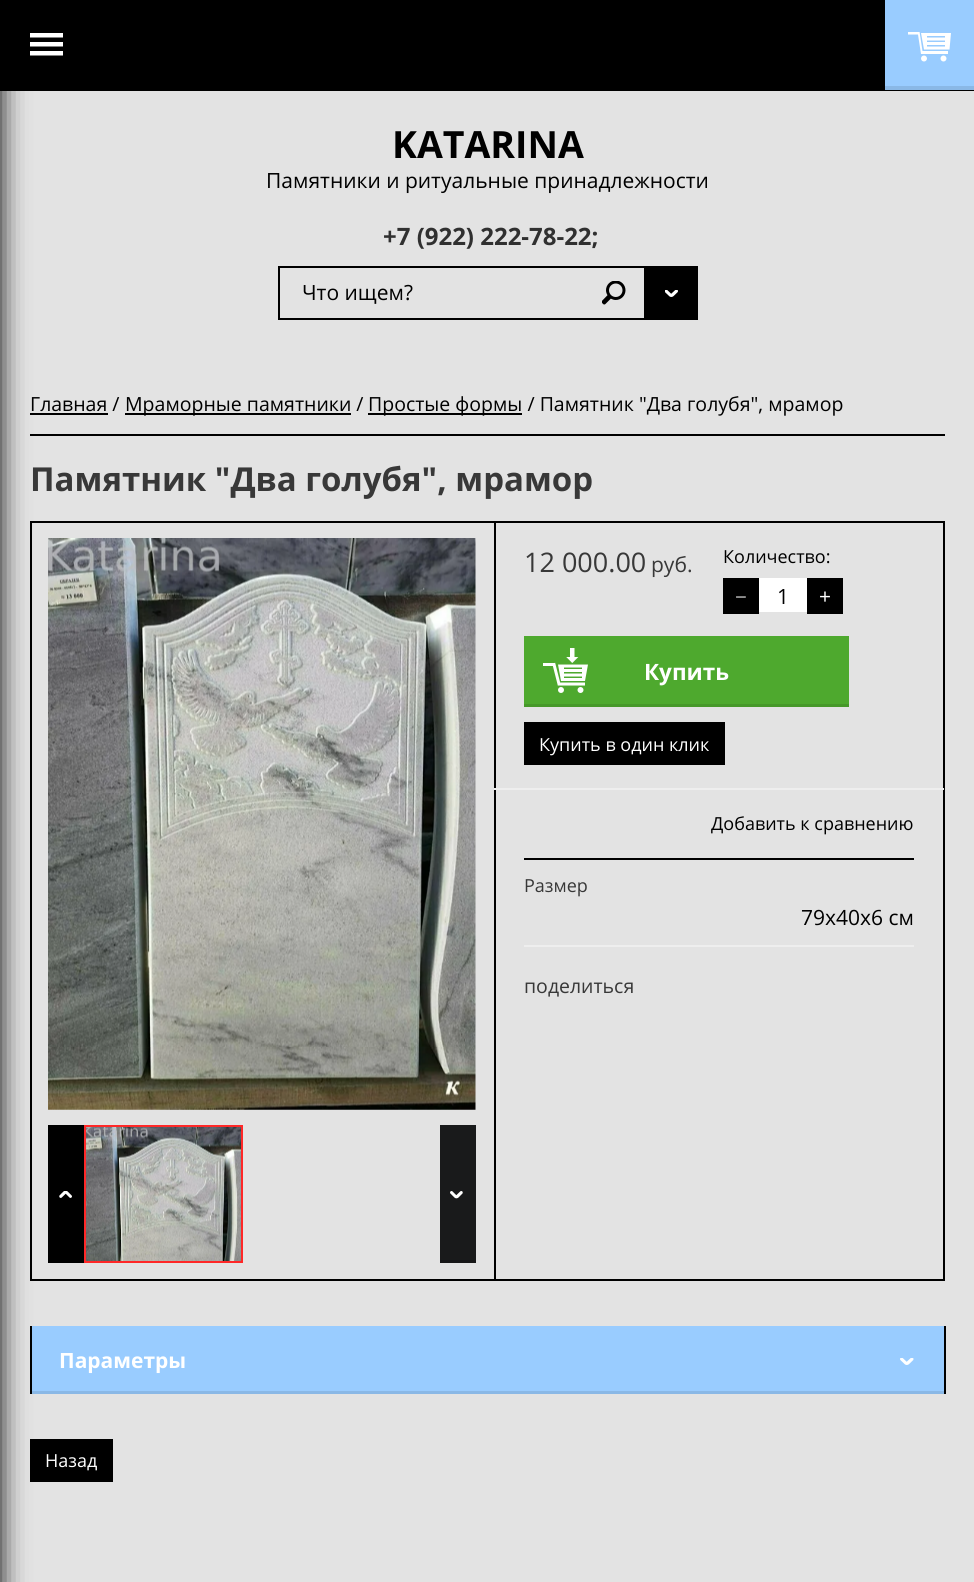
#include <cairo/cairo.h>
#include <math.h>
#include <stddef.h>


static void rounded_rect(cairo_t *cr, double x, double y, double w, double h, double r) {
  cairo_new_sub_path(cr);
  cairo_arc(cr, x + w - r, y + h - r, r, 0, M_PI / 2);
  cairo_arc(cr, x + r, y + h - r, r, M_PI / 2, M_PI);
  cairo_arc(cr, x + r, y + r, r, M_PI, 1.5 * M_PI);
  cairo_arc(cr, x + w - r, y + r, r, 1.5 * M_PI, 2 * M_PI);
  cairo_close_path(cr);
}

static void draw_shadow(cairo_t *cr, double x, double y, double w, double h, double r, double blur, double alpha) {
  cairo_push_group_with_content(cr, CAIRO_CONTENT_ALPHA);
  cairo_set_operator(cr, CAIRO_OPERATOR_SOURCE);
  for (int i = 15; i >= -15 && fmin(w, h) + blur * i / 3 > 0; i -= 2) {
    double e = blur * i / 6;
    cairo_set_source_rgba(cr, 0, 0, 0, alpha * erfc((i - 1) / 8.5) / 2);
    rounded_rect(cr, x - e, y - e, w + 2 * e, h + 2 * e, fmax(0, fmin(r + e + blur * .6, fmin(w, h) / 2 + e)));
    cairo_fill(cr);
  }
  cairo_pattern_t *soft = cairo_pop_group(cr);
  cairo_mask(cr, soft);
  cairo_pattern_destroy(soft);
}

static void draw_image(cairo_t *cr, const char *path, double x, double y, double w, double h) {
  cairo_surface_t *image = cairo_image_surface_create_from_png(path);
  cairo_save(cr);
  cairo_set_source_surface(cr, image, x, y);
  cairo_rectangle(cr, x, y, w, h);
  cairo_fill(cr);
  cairo_restore(cr);
  cairo_surface_destroy(image);
}

static void draw(cairo_t *cr) {
  cairo_set_source_rgb(cr, 227 / 255.0, 227 / 255.0, 227 / 255.0);
  cairo_paint(cr);
  cairo_set_source_rgb(cr, 0, 0, 0);
  cairo_rectangle(cr, 0, 0, 885, 91);
  cairo_fill(cr);
  cairo_rectangle(cr, 885, 90, 89, 1);
  cairo_fill(cr);
  cairo_set_source_rgb(cr, 153 / 255.0, 204 / 255.0, 1);
  cairo_rectangle(cr, 885, 0, 89, 86);
  cairo_fill(cr);
  cairo_set_source_rgb(cr, 138 / 255.0, 184 / 255.0, 230 / 255.0);
  cairo_rectangle(cr, 885, 86, 89, 4);
  cairo_fill(cr);
  draw_image(cr, "images/1.png", 908, 32, 43, 30);
  cairo_set_source_rgb(cr, 0, 0, 0);
  cairo_rectangle(cr, 30, 434, 915, 2);
  cairo_fill(cr);
  cairo_rectangle(cr, 30, 413, 78, 2);
  cairo_fill(cr);
  cairo_rectangle(cr, 31, 522, 913, 758);
  cairo_stroke(cr);
  cairo_rectangle(cr, 30, 1326, 2, 68);
  cairo_fill(cr);
  cairo_set_source_rgb(cr, 153 / 255.0, 204 / 255.0, 1);
  cairo_rectangle(cr, 32, 1326, 912, 65);
  cairo_fill(cr);
  cairo_set_source_rgb(cr, 138 / 255.0, 184 / 255.0, 230 / 255.0);
  cairo_rectangle(cr, 32, 1391, 912, 3);
  cairo_fill(cr);
  cairo_set_source_rgb(cr, 0, 0, 0);
  cairo_rectangle(cr, 30, 1439, 83, 43);
  cairo_fill(cr);
  cairo_set_source_rgb(cr, 0, 0, 0);
  draw_shadow(cr, -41, 11, 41, 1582, 0, 13.5, 1);
  cairo_set_source_rgb(cr, 1, 1, 1);
  cairo_new_path(cr);
  cairo_move_to(cr, 30, 46.5);
  cairo_line_to(cr, 63, 46.5);
  cairo_line_to(cr, 63, 42);
  cairo_line_to(cr, 30, 42);
  cairo_close_path(cr);
  cairo_move_to(cr, 30, 55.5);
  cairo_line_to(cr, 63, 55.5);
  cairo_line_to(cr, 63, 51);
  cairo_line_to(cr, 30, 51);
  cairo_close_path(cr);
  cairo_move_to(cr, 30, 33);
  cairo_line_to(cr, 30, 37.5);
  cairo_line_to(cr, 63, 37.5);
  cairo_line_to(cr, 63, 33);
  cairo_close_path(cr);
  cairo_fill(cr);
  cairo_set_source_rgb(cr, 0, 0, 0);
  cairo_rectangle(cr, 278, 266, 366, 2);
  cairo_fill(cr);
  cairo_rectangle(cr, 278, 318, 366, 2);
  cairo_fill(cr);
  cairo_rectangle(cr, 278, 266, 2, 54);
  cairo_fill(cr);
  draw_image(cr, "images/2.png", 602, 281, 24, 24);
  cairo_rectangle(cr, 644, 266, 54, 54);
  cairo_fill(cr);
  draw_image(cr, "images/3.png", 665, 290, 13, 7);
  cairo_rectangle(cr, 125, 413, 226, 2);
  cairo_fill(cr);
  cairo_rectangle(cr, 368, 413, 154, 2);
  cairo_fill(cr);
  draw_image(cr, "images/4.png", 48, 538, 428, 572);
  cairo_rectangle(cr, 48, 1125, 36, 138);
  cairo_fill(cr);
  draw_image(cr, "images/5.png", 59, 1191, 13, 7);
  draw_image(cr, "images/6.png", 86, 1127, 155, 134);
  cairo_rectangle(cr, 85, 1126, 157, 136);
  cairo_set_source_rgb(cr, 1, 40 / 255.0, 40 / 255.0);
  cairo_stroke(cr);
  cairo_set_source_rgb(cr, 25 / 255.0, 26 / 255.0, 27 / 255.0);
  cairo_rectangle(cr, 440, 1125, 36, 135);
  cairo_fill(cr);
  cairo_set_source_rgb(cr, 23 / 255.0, 23 / 255.0, 24 / 255.0);
  cairo_rectangle(cr, 440, 1260, 36, 3);
  cairo_fill(cr);
  draw_image(cr, "images/7.png", 450, 1191, 13, 8);
  cairo_set_source_rgb(cr, 0, 0, 0);
  cairo_rectangle(cr, 494, 522, 2, 758);
  cairo_fill(cr);
  cairo_set_source_rgb(cr, 238 / 255.0, 238 / 255.0, 238 / 255.0);
  cairo_rectangle(cr, 494, 788, 450, 2);
  cairo_fill(cr);
  cairo_set_source_rgb(cr, 0, 0, 0);
  cairo_rectangle(cr, 723, 578, 36, 36);
  cairo_fill(cr);
  cairo_set_source_rgb(cr, 1, 1, 1);
  cairo_rectangle(cr, 759, 578, 48, 34);
  cairo_fill(cr);
  cairo_set_source_rgb(cr, 0, 0, 0);
  cairo_rectangle(cr, 807, 578, 36, 36);
  cairo_fill(cr);
  cairo_set_source_rgb(cr, 78 / 255.0, 169 / 255.0, 46 / 255.0);
  cairo_rectangle(cr, 524, 636, 325, 68);
  cairo_fill(cr);
  cairo_set_source_rgb(cr, 70 / 255.0, 152 / 255.0, 41 / 255.0);
  cairo_rectangle(cr, 524, 704, 325, 3);
  cairo_fill(cr);
  draw_image(cr, "images/8.png", 543, 648, 45, 45);
  cairo_set_source_rgb(cr, 0, 0, 0);
  cairo_rectangle(cr, 524, 722, 201, 43);
  cairo_fill(cr);
  cairo_rectangle(cr, 524, 858, 390, 2);
  cairo_fill(cr);
  cairo_set_source_rgb(cr, 238 / 255.0, 238 / 255.0, 238 / 255.0);
  cairo_rectangle(cr, 524, 945, 390, 2);
  cairo_fill(cr);
  cairo_set_source_rgb(cr, 0, 0, 0);
  cairo_rectangle(cr, 944, 1326, 2, 68);
  cairo_fill(cr);
  draw_image(cr, "images/9.png", 900, 1358, 14, 7);
  cairo_select_font_face(cr, "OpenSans", CAIRO_FONT_SLANT_NORMAL, CAIRO_FONT_WEIGHT_BOLD);
  cairo_set_font_size(cr, 37.5);
  cairo_move_to(cr, 392, 158);
  cairo_show_text(cr, "KATARINA");
  cairo_select_font_face(cr, "OpenSans", CAIRO_FONT_SLANT_NORMAL, CAIRO_FONT_WEIGHT_NORMAL);
  cairo_set_font_size(cr, 21);
  cairo_move_to(cr, 266, 188);
  cairo_show_text(cr, "Памятники и ритуальные принадлежности");
  cairo_select_font_face(cr, "OpenSans", CAIRO_FONT_SLANT_NORMAL, CAIRO_FONT_WEIGHT_BOLD);
  cairo_set_font_size(cr, 24);
  cairo_set_source_rgb(cr, 48 / 255.0, 48 / 255.0, 48 / 255.0);
  cairo_move_to(cr, 383, 245);
  cairo_show_text(cr, "+7 (922) 222-78-22;");
  cairo_select_font_face(cr, "OpenSans", CAIRO_FONT_SLANT_NORMAL, CAIRO_FONT_WEIGHT_NORMAL);
  cairo_set_font_size(cr, 21);
  cairo_set_source_rgb(cr, 0, 0, 0);
  cairo_move_to(cr, 302, 300);
  cairo_show_text(cr, "Что ищем?");
  cairo_set_font_size(cr, 19.5);
  cairo_move_to(cr, 30, 411);
  cairo_show_text(cr, "Главная /");
  cairo_move_to(cr, 125, 411);
  cairo_show_text(cr, "Мраморные памятники /");
  cairo_move_to(cr, 368, 411);
  cairo_show_text(cr, "Простые формы / Памятник \"Два голубя\", мрамор");
  cairo_select_font_face(cr, "OpenSans", CAIRO_FONT_SLANT_NORMAL, CAIRO_FONT_WEIGHT_BOLD);
  cairo_set_font_size(cr, 33);
  cairo_set_source_rgb(cr, 56 / 255.0, 56 / 255.0, 56 / 255.0);
  cairo_move_to(cr, 30, 491);
  cairo_show_text(cr, "Памятник \"Два голубя\", мрамор");
  cairo_select_font_face(cr, "OpenSans", CAIRO_FONT_SLANT_NORMAL, CAIRO_FONT_WEIGHT_NORMAL);
  cairo_set_font_size(cr, 27);
  cairo_move_to(cr, 524, 572);
  cairo_show_text(cr, "12 000.00");
  cairo_set_font_size(cr, 21);
  cairo_move_to(cr, 651, 572);
  cairo_show_text(cr, "руб.");
  cairo_set_font_size(cr, 18);
  cairo_set_source_rgb(cr, 0, 0, 0);
  cairo_move_to(cr, 723, 563);
  cairo_show_text(cr, "Количество:");
  cairo_select_font_face(cr, "Liberation Serif", CAIRO_FONT_SLANT_NORMAL, CAIRO_FONT_WEIGHT_NORMAL);
  cairo_set_font_size(cr, 21);
  cairo_set_source_rgb(cr, 1, 1, 1);
  cairo_move_to(cr, 735, 604);
  cairo_show_text(cr, "−");
  cairo_select_font_face(cr, "OpenSans", CAIRO_FONT_SLANT_NORMAL, CAIRO_FONT_WEIGHT_NORMAL);
  cairo_set_source_rgb(cr, 0, 0, 0);
  cairo_move_to(cr, 777, 604);
  cairo_show_text(cr, "1");
  cairo_set_source_rgb(cr, 1, 1, 1);
  cairo_move_to(cr, 819, 604);
  cairo_show_text(cr, "+");
  cairo_select_font_face(cr, "OpenSans", CAIRO_FONT_SLANT_NORMAL, CAIRO_FONT_WEIGHT_BOLD);
  cairo_set_font_size(cr, 22.5);
  cairo_move_to(cr, 644, 680);
  cairo_show_text(cr, "Купить");
  cairo_select_font_face(cr, "OpenSans", CAIRO_FONT_SLANT_NORMAL, CAIRO_FONT_WEIGHT_NORMAL);
  cairo_set_font_size(cr, 18);
  cairo_move_to(cr, 539, 751);
  cairo_show_text(cr, "Купить в один клик");
  cairo_set_source_rgb(cr, 0, 0, 0);
  cairo_move_to(cr, 711, 830);
  cairo_show_text(cr, "Добавить к сравнению");
  cairo_set_source_rgb(cr, 56 / 255.0, 56 / 255.0, 56 / 255.0);
  cairo_move_to(cr, 524, 892);
  cairo_show_text(cr, "Размер");
  cairo_set_font_size(cr, 21);
  cairo_set_source_rgb(cr, 0, 0, 0);
  cairo_move_to(cr, 801, 925);
  cairo_show_text(cr, "79х40х6 см");
  cairo_set_font_size(cr, 19.5);
  cairo_set_source_rgb(cr, 56 / 255.0, 56 / 255.0, 56 / 255.0);
  cairo_move_to(cr, 524, 993);
  cairo_show_text(cr, "поделиться");
  cairo_select_font_face(cr, "OpenSans", CAIRO_FONT_SLANT_NORMAL, CAIRO_FONT_WEIGHT_BOLD);
  cairo_set_font_size(cr, 21);
  cairo_set_source_rgb(cr, 1, 1, 1);
  cairo_move_to(cr, 59, 1368);
  cairo_show_text(cr, "Параметры");
  cairo_select_font_face(cr, "OpenSans", CAIRO_FONT_SLANT_NORMAL, CAIRO_FONT_WEIGHT_NORMAL);
  cairo_set_font_size(cr, 18);
  cairo_move_to(cr, 45, 1467);
  cairo_show_text(cr, "Назад");
}

int main(void) {
  cairo_surface_t *surface = cairo_image_surface_create(CAIRO_FORMAT_RGB24, 974, 1582);
  cairo_t *cr = cairo_create(surface);
  cairo_font_options_t *options = cairo_font_options_create();
  cairo_font_options_set_hint_metrics(options, CAIRO_HINT_METRICS_OFF);
  cairo_font_options_set_hint_style(options, CAIRO_HINT_STYLE_NONE);
  cairo_set_font_options(cr, options);
  cairo_set_miter_limit(cr, 4);
  draw(cr);
  cairo_surface_write_to_png(surface, "out.png");
  cairo_font_options_destroy(options);
  cairo_destroy(cr);
  cairo_surface_destroy(surface);
  return 0;
}
